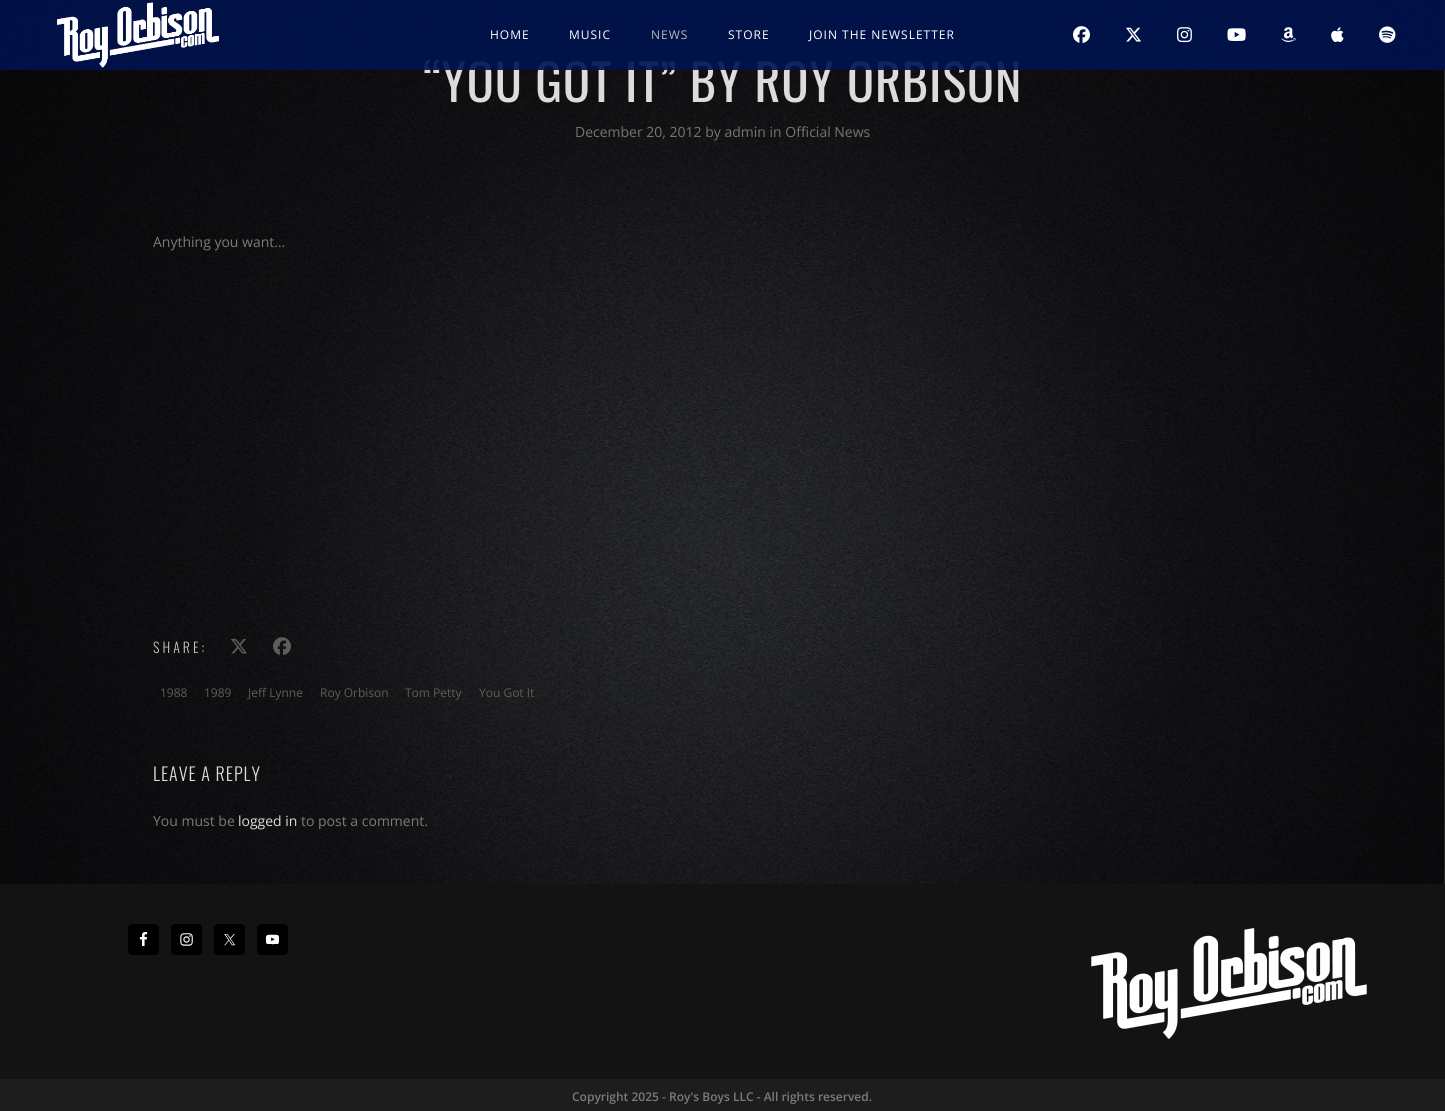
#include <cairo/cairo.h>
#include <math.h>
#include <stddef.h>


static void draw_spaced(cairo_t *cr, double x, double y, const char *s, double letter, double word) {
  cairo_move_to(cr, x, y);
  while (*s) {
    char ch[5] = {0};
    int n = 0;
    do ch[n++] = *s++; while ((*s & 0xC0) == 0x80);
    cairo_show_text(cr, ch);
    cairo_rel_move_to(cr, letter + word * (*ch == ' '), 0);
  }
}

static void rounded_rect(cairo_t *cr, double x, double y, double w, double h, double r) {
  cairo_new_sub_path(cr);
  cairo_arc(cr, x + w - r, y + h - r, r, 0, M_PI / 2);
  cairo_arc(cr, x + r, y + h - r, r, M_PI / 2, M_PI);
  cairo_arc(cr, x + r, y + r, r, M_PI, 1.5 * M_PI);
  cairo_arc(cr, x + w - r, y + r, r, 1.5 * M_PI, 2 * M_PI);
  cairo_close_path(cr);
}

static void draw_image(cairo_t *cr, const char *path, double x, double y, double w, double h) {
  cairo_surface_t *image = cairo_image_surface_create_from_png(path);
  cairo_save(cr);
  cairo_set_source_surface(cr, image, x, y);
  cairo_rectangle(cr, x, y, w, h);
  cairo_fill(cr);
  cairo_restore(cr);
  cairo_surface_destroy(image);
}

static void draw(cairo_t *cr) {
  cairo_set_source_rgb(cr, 1, 1, 1);
  cairo_paint(cr);
  draw_image(cr, "images/1.png", 0, 0, 1445, 884);
  draw_image(cr, "images/10.png", 231, 638, 16, 16);
  draw_image(cr, "images/11.png", 273, 637, 18, 19);
  cairo_set_source_rgb(cr, 19 / 255.0, 19 / 255.0, 19 / 255.0);
  cairo_rectangle(cr, 0, 884, 1445, 195);
  cairo_fill(cr);
  cairo_set_source_rgb(cr, 0, 0, 0);
  rounded_rect(cr, 128, 924, 31, 31, 4);
  cairo_fill(cr);
  draw_image(cr, "images/12.png", 139, 932, 9, 14);
  rounded_rect(cr, 171, 924, 31, 31, 4);
  cairo_fill(cr);
  draw_image(cr, "images/13.png", 180, 933, 13, 13);
  rounded_rect(cr, 214, 924, 31, 31, 4);
  cairo_fill(cr);
  draw_image(cr, "images/14.png", 224, 934, 12, 12);
  rounded_rect(cr, 257, 924, 31, 31, 4);
  cairo_fill(cr);
  draw_image(cr, "images/15.png", 265, 934, 15, 11);
  draw_image(cr, "images/16.png", 1091, 928, 276, 111);
  cairo_set_source_rgb(cr, 29 / 255.0, 29 / 255.0, 29 / 255.0);
  cairo_rectangle(cr, 0, 1079, 1445, 32);
  cairo_fill(cr);
  cairo_select_font_face(cr, "Oswald", CAIRO_FONT_SLANT_NORMAL, CAIRO_FONT_WEIGHT_NORMAL);
  cairo_set_font_size(cr, 50);
  cairo_set_source_rgb(cr, 220 / 255.0, 220 / 255.0, 220 / 255.0);
  draw_spaced(cr, 423, 102, "“YOU GOT IT” BY ROY ORBISON", 1, 0);
  cairo_set_source_rgba(cr, 0, 19 / 255.0, 79 / 255.0, 0.7);
  cairo_rectangle(cr, 0, 0, 1445, 70);
  cairo_fill(cr);
  cairo_rectangle(cr, 0, 0, 1445, 70);
  cairo_fill(cr);
  cairo_select_font_face(cr, "Open Sans", CAIRO_FONT_SLANT_NORMAL, CAIRO_FONT_WEIGHT_NORMAL);
  cairo_set_font_size(cr, 12);
  cairo_set_source_rgb(cr, 1, 1, 1);
  draw_spaced(cr, 809, 39, "JOIN THE NEWSLETTER", 1, 0);
  draw_spaced(cr, 728, 39, "STORE", 1, 0);
  cairo_set_source_rgb(cr, 183 / 255.0, 183 / 255.0, 183 / 255.0);
  draw_spaced(cr, 651, 39, "NEWS", 1, 0);
  cairo_set_source_rgb(cr, 1, 1, 1);
  draw_spaced(cr, 569, 39, "MUSIC", 1, 0);
  draw_spaced(cr, 490, 39, "HOME", 1, 0);
  draw_image(cr, "images/9.png", 1379, 26, 17, 17);
  draw_image(cr, "images/8.png", 1331, 27, 13, 15);
  draw_image(cr, "images/7.png", 1281, 27, 15, 16);
  draw_image(cr, "images/6.png", 1227, 28, 19, 13);
  draw_image(cr, "images/5.png", 1177, 27, 15, 16);
  draw_image(cr, "images/4.png", 1126, 27, 15, 15);
  draw_image(cr, "images/3.png", 1073, 26, 17, 17);
  draw_image(cr, "images/2.png", 57, 2, 162, 66);
  cairo_set_font_size(cr, 14);
  cairo_set_source_rgb(cr, 117 / 255.0, 117 / 255.0, 117 / 255.0);
  cairo_move_to(cr, 575, 137);
  cairo_show_text(cr, "December 20, 2012 by admin in Official News");
  cairo_set_source_rgb(cr, 123 / 255.0, 123 / 255.0, 123 / 255.0);
  cairo_move_to(cr, 153, 247);
  cairo_show_text(cr, "Anything you want…");
  cairo_select_font_face(cr, "Oswald Light", CAIRO_FONT_SLANT_NORMAL, CAIRO_FONT_WEIGHT_NORMAL);
  cairo_set_source_rgb(cr, 197 / 255.0, 197 / 255.0, 197 / 255.0);
  draw_spaced(cr, 153, 653, "SHARE:", 3, 0);
  cairo_select_font_face(cr, "Open Sans", CAIRO_FONT_SLANT_NORMAL, CAIRO_FONT_WEIGHT_NORMAL);
  cairo_set_font_size(cr, 12);
  cairo_set_source_rgb(cr, 93 / 255.0, 93 / 255.0, 93 / 255.0);
  cairo_move_to(cr, 160, 697);
  cairo_show_text(cr, "1988");
  cairo_move_to(cr, 204, 697);
  cairo_show_text(cr, "1989");
  cairo_move_to(cr, 248, 697);
  cairo_show_text(cr, "Jeff Lynne");
  cairo_move_to(cr, 320, 697);
  cairo_show_text(cr, "Roy Orbison");
  cairo_move_to(cr, 405, 697);
  cairo_show_text(cr, "Tom Petty");
  cairo_move_to(cr, 479, 697);
  cairo_show_text(cr, "You Got It");
  cairo_select_font_face(cr, "Oswald Light", CAIRO_FONT_SLANT_NORMAL, CAIRO_FONT_WEIGHT_NORMAL);
  cairo_set_font_size(cr, 18);
  cairo_set_source_rgb(cr, 220 / 255.0, 220 / 255.0, 220 / 255.0);
  draw_spaced(cr, 153, 781, "LEAVE A REPLY", 1, 0);
  cairo_select_font_face(cr, "Open Sans", CAIRO_FONT_SLANT_NORMAL, CAIRO_FONT_WEIGHT_NORMAL);
  cairo_set_font_size(cr, 14);
  cairo_set_source_rgb(cr, 123 / 255.0, 123 / 255.0, 123 / 255.0);
  cairo_move_to(cr, 153, 826);
  cairo_show_text(cr, "You must be");
  cairo_set_source_rgb(cr, 220 / 255.0, 220 / 255.0, 220 / 255.0);
  cairo_move_to(cr, 238, 826);
  cairo_show_text(cr, "logged in");
  cairo_set_source_rgb(cr, 123 / 255.0, 123 / 255.0, 123 / 255.0);
  cairo_move_to(cr, 301, 826);
  cairo_show_text(cr, "to post a comment.");
  cairo_select_font_face(cr, "Open Sans SemiBold", CAIRO_FONT_SLANT_NORMAL, CAIRO_FONT_WEIGHT_NORMAL);
  cairo_set_font_size(cr, 12);
  cairo_move_to(cr, 572, 1101);
  cairo_show_text(cr, "Copyright 2025 - Roy's Boys LLC - All rights reserved.");
}

int main(void) {
  cairo_surface_t *surface = cairo_image_surface_create(CAIRO_FORMAT_RGB24, 1445, 1111);
  cairo_t *cr = cairo_create(surface);
  cairo_font_options_t *options = cairo_font_options_create();
  cairo_font_options_set_hint_metrics(options, CAIRO_HINT_METRICS_OFF);
  cairo_font_options_set_hint_style(options, CAIRO_HINT_STYLE_NONE);
  cairo_set_font_options(cr, options);
  cairo_set_miter_limit(cr, 4);
  draw(cr);
  cairo_surface_write_to_png(surface, "out.png");
  cairo_font_options_destroy(options);
  cairo_destroy(cr);
  cairo_surface_destroy(surface);
  return 0;
}
